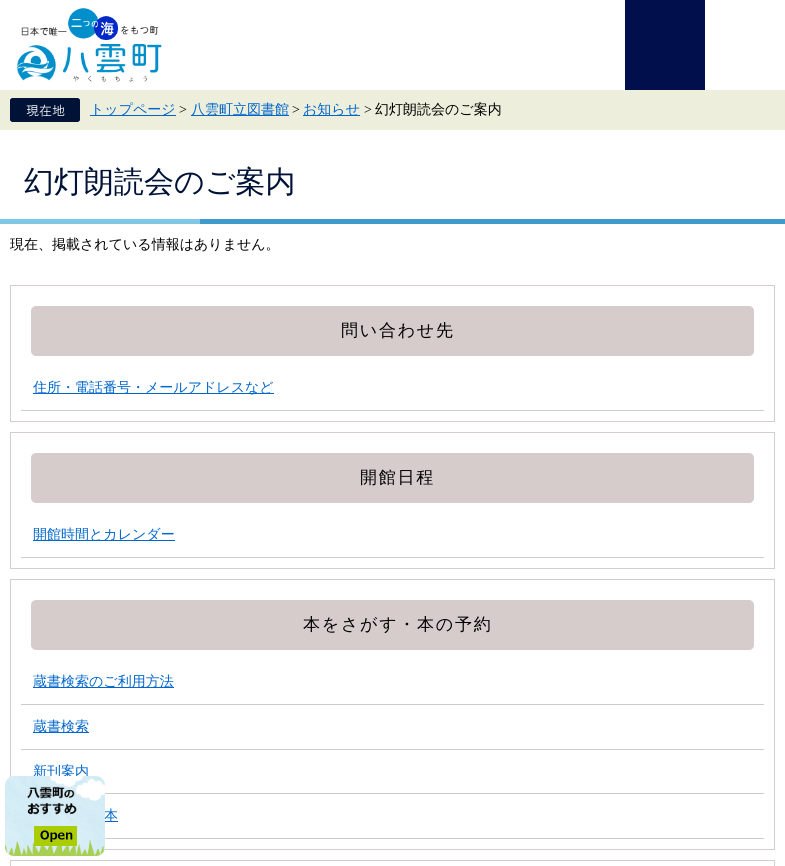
#include <cairo/cairo.h>
#include <math.h>
#include <stddef.h>


static void draw_spaced(cairo_t *cr, double x, double y, const char *s, double letter, double word) {
  cairo_move_to(cr, x, y);
  while (*s) {
    char ch[5] = {0};
    int n = 0;
    do ch[n++] = *s++; while ((*s & 0xC0) == 0x80);
    cairo_show_text(cr, ch);
    cairo_rel_move_to(cr, letter + word * (*ch == ' '), 0);
  }
}

static void rounded_rect(cairo_t *cr, double x, double y, double w, double h, double r) {
  cairo_new_sub_path(cr);
  cairo_arc(cr, x + w - r, y + h - r, r, 0, M_PI / 2);
  cairo_arc(cr, x + r, y + h - r, r, M_PI / 2, M_PI);
  cairo_arc(cr, x + r, y + r, r, M_PI, 1.5 * M_PI);
  cairo_arc(cr, x + w - r, y + r, r, 1.5 * M_PI, 2 * M_PI);
  cairo_close_path(cr);
}

static void draw_image(cairo_t *cr, const char *path, double x, double y, double w, double h) {
  cairo_surface_t *image = cairo_image_surface_create_from_png(path);
  cairo_save(cr);
  cairo_set_source_surface(cr, image, x, y);
  cairo_rectangle(cr, x, y, w, h);
  cairo_fill(cr);
  cairo_restore(cr);
  cairo_surface_destroy(image);
}

static void draw(cairo_t *cr) {
  cairo_set_source_rgb(cr, 1, 1, 1);
  cairo_paint(cr);
  draw_image(cr, "images/1.png", 16, 8, 146, 74);
  cairo_set_source_rgb(cr, 1 / 255.0, 15 / 255.0, 76 / 255.0);
  cairo_rectangle(cr, 625, 0, 80, 90);
  cairo_fill(cr);
  cairo_set_source_rgb(cr, 237 / 255.0, 238 / 255.0, 219 / 255.0);
  cairo_rectangle(cr, 0, 90, 785, 40);
  cairo_fill(cr);
  draw_image(cr, "images/2.png", 10, 98, 70, 24);
  cairo_set_source_rgb(cr, 0, 102 / 255.0, 204 / 255.0);
  cairo_rectangle(cr, 90, 115, 86, 1);
  cairo_fill(cr);
  cairo_rectangle(cr, 191, 115, 98, 1);
  cairo_fill(cr);
  cairo_rectangle(cr, 303, 115, 57, 1);
  cairo_fill(cr);
  cairo_set_source_rgb(cr, 127 / 255.0, 199 / 255.0, 228 / 255.0);
  cairo_rectangle(cr, 0, 219, 200, 5);
  cairo_fill(cr);
  cairo_set_source_rgb(cr, 63 / 255.0, 155 / 255.0, 204 / 255.0);
  cairo_rectangle(cr, 200, 219, 585, 5);
  cairo_fill(cr);
  cairo_rectangle(cr, 10.5, 285.5, 764, 136);
  cairo_set_source_rgb(cr, 215 / 255.0, 204 / 255.0, 204 / 255.0);
  cairo_set_line_width(cr, 1);
  cairo_stroke(cr);
  rounded_rect(cr, 31, 306, 723, 50, 5);
  cairo_fill(cr);
  cairo_set_source_rgb(cr, 204 / 255.0, 204 / 255.0, 204 / 255.0);
  cairo_rectangle(cr, 21, 410, 743, 1);
  cairo_fill(cr);
  cairo_set_source_rgb(cr, 0, 102 / 255.0, 204 / 255.0);
  cairo_rectangle(cr, 33, 393, 241, 1);
  cairo_fill(cr);
  cairo_rectangle(cr, 10.5, 432.5, 764, 136);
  cairo_set_source_rgb(cr, 215 / 255.0, 204 / 255.0, 204 / 255.0);
  cairo_stroke(cr);
  rounded_rect(cr, 31, 453, 723, 50, 5);
  cairo_fill(cr);
  cairo_set_source_rgb(cr, 204 / 255.0, 204 / 255.0, 204 / 255.0);
  cairo_rectangle(cr, 21, 557, 743, 1);
  cairo_fill(cr);
  cairo_set_source_rgb(cr, 0, 102 / 255.0, 204 / 255.0);
  cairo_rectangle(cr, 33, 540, 142, 1);
  cairo_fill(cr);
  cairo_rectangle(cr, 10.5, 579.5, 764, 270);
  cairo_set_source_rgb(cr, 215 / 255.0, 204 / 255.0, 204 / 255.0);
  cairo_stroke(cr);
  rounded_rect(cr, 31, 600, 723, 50, 5);
  cairo_fill(cr);
  cairo_set_source_rgb(cr, 204 / 255.0, 204 / 255.0, 204 / 255.0);
  cairo_rectangle(cr, 21, 704, 743, 1);
  cairo_fill(cr);
  cairo_set_source_rgb(cr, 0, 102 / 255.0, 204 / 255.0);
  cairo_rectangle(cr, 33, 687, 141, 1);
  cairo_fill(cr);
  cairo_set_source_rgb(cr, 204 / 255.0, 204 / 255.0, 204 / 255.0);
  cairo_rectangle(cr, 21, 749, 743, 1);
  cairo_fill(cr);
  cairo_set_source_rgb(cr, 0, 102 / 255.0, 204 / 255.0);
  cairo_rectangle(cr, 33, 732, 56, 1);
  cairo_fill(cr);
  cairo_set_source_rgb(cr, 204 / 255.0, 204 / 255.0, 204 / 255.0);
  cairo_rectangle(cr, 105, 793, 659, 1);
  cairo_fill(cr);
  cairo_rectangle(cr, 105, 838, 659, 1);
  cairo_fill(cr);
  cairo_set_source_rgb(cr, 0, 102 / 255.0, 204 / 255.0);
  cairo_rectangle(cr, 105, 821, 13, 1);
  cairo_fill(cr);
  cairo_rectangle(cr, 10.5, 860.5, 764, 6);
  cairo_set_source_rgb(cr, 215 / 255.0, 204 / 255.0, 204 / 255.0);
  cairo_stroke(cr);
  cairo_select_font_face(cr, "WenQuanYi Zen Hei Medium", CAIRO_FONT_SLANT_NORMAL, CAIRO_FONT_WEIGHT_NORMAL);
  cairo_set_font_size(cr, 14);
  cairo_set_source_rgb(cr, 0, 102 / 255.0, 204 / 255.0);
  cairo_move_to(cr, 90, 114);
  cairo_show_text(cr, "トップページ");
  cairo_select_font_face(cr, "Liberation Serif", CAIRO_FONT_SLANT_NORMAL, CAIRO_FONT_WEIGHT_NORMAL);
  cairo_set_source_rgb(cr, 0, 0, 0);
  cairo_move_to(cr, 179, 114);
  cairo_show_text(cr, ">");
  cairo_select_font_face(cr, "WenQuanYi Zen Hei Medium", CAIRO_FONT_SLANT_NORMAL, CAIRO_FONT_WEIGHT_NORMAL);
  cairo_set_source_rgb(cr, 0, 102 / 255.0, 204 / 255.0);
  cairo_move_to(cr, 191, 114);
  cairo_show_text(cr, "八雲町立図書館");
  cairo_select_font_face(cr, "Liberation Serif", CAIRO_FONT_SLANT_NORMAL, CAIRO_FONT_WEIGHT_NORMAL);
  cairo_set_source_rgb(cr, 0, 0, 0);
  cairo_move_to(cr, 292, 114);
  cairo_show_text(cr, ">");
  cairo_select_font_face(cr, "WenQuanYi Zen Hei Medium", CAIRO_FONT_SLANT_NORMAL, CAIRO_FONT_WEIGHT_NORMAL);
  cairo_set_source_rgb(cr, 0, 102 / 255.0, 204 / 255.0);
  cairo_move_to(cr, 303, 114);
  cairo_show_text(cr, "お知らせ");
  cairo_select_font_face(cr, "Liberation Serif", CAIRO_FONT_SLANT_NORMAL, CAIRO_FONT_WEIGHT_NORMAL);
  cairo_set_source_rgb(cr, 0, 0, 0);
  cairo_move_to(cr, 364, 114);
  cairo_show_text(cr, ">");
  cairo_select_font_face(cr, "WenQuanYi Zen Hei Medium", CAIRO_FONT_SLANT_NORMAL, CAIRO_FONT_WEIGHT_NORMAL);
  cairo_move_to(cr, 375, 114);
  cairo_show_text(cr, "幻灯朗読会のご案内");
  cairo_set_font_size(cr, 30);
  cairo_set_source_rgb(cr, 0, 19 / 255.0, 55 / 255.0);
  cairo_move_to(cr, 24, 192);
  cairo_show_text(cr, "幻灯朗読会のご案内");
  cairo_set_font_size(cr, 14);
  cairo_set_source_rgb(cr, 0, 0, 0);
  cairo_move_to(cr, 10, 249);
  cairo_show_text(cr, "現在、掲載されている情報はありません。");
  cairo_set_font_size(cr, 17);
  draw_spaced(cr, 341, 336, "問い合わせ先", 1.75, 0);
  cairo_set_font_size(cr, 14);
  cairo_set_source_rgb(cr, 0, 102 / 255.0, 204 / 255.0);
  cairo_move_to(cr, 33, 392);
  cairo_show_text(cr, "住所・電話番号・メールアドレスなど");
  cairo_set_font_size(cr, 17);
  cairo_set_source_rgb(cr, 0, 0, 0);
  draw_spaced(cr, 360, 483, "開館日程", 1.75, 0);
  cairo_set_font_size(cr, 14);
  cairo_set_source_rgb(cr, 0, 102 / 255.0, 204 / 255.0);
  cairo_move_to(cr, 33, 539);
  cairo_show_text(cr, "開館時間とカレンダー");
  cairo_set_font_size(cr, 17);
  cairo_set_source_rgb(cr, 0, 0, 0);
  draw_spaced(cr, 303, 630, "本をさがす・本の予約", 1.75, 0);
  cairo_set_font_size(cr, 14);
  cairo_set_source_rgb(cr, 0, 102 / 255.0, 204 / 255.0);
  cairo_move_to(cr, 33, 686);
  cairo_show_text(cr, "蔵書検索のご利用方法");
  cairo_move_to(cr, 33, 731);
  cairo_show_text(cr, "蔵書検索");
  cairo_move_to(cr, 33, 776);
  cairo_show_text(cr, "新刊案内");
  cairo_move_to(cr, 104, 820);
  cairo_show_text(cr, "本");
  draw_image(cr, "images/3.png", 5, 776, 100, 80);
  draw_image(cr, "images/4.png", 34, 826, 43, 20);
}

int main(void) {
  cairo_surface_t *surface = cairo_image_surface_create(CAIRO_FORMAT_RGB24, 785, 866);
  cairo_t *cr = cairo_create(surface);
  cairo_font_options_t *options = cairo_font_options_create();
  cairo_font_options_set_hint_metrics(options, CAIRO_HINT_METRICS_OFF);
  cairo_font_options_set_hint_style(options, CAIRO_HINT_STYLE_NONE);
  cairo_set_font_options(cr, options);
  cairo_set_miter_limit(cr, 4);
  draw(cr);
  cairo_surface_write_to_png(surface, "out.png");
  cairo_font_options_destroy(options);
  cairo_destroy(cr);
  cairo_surface_destroy(surface);
  return 0;
}
